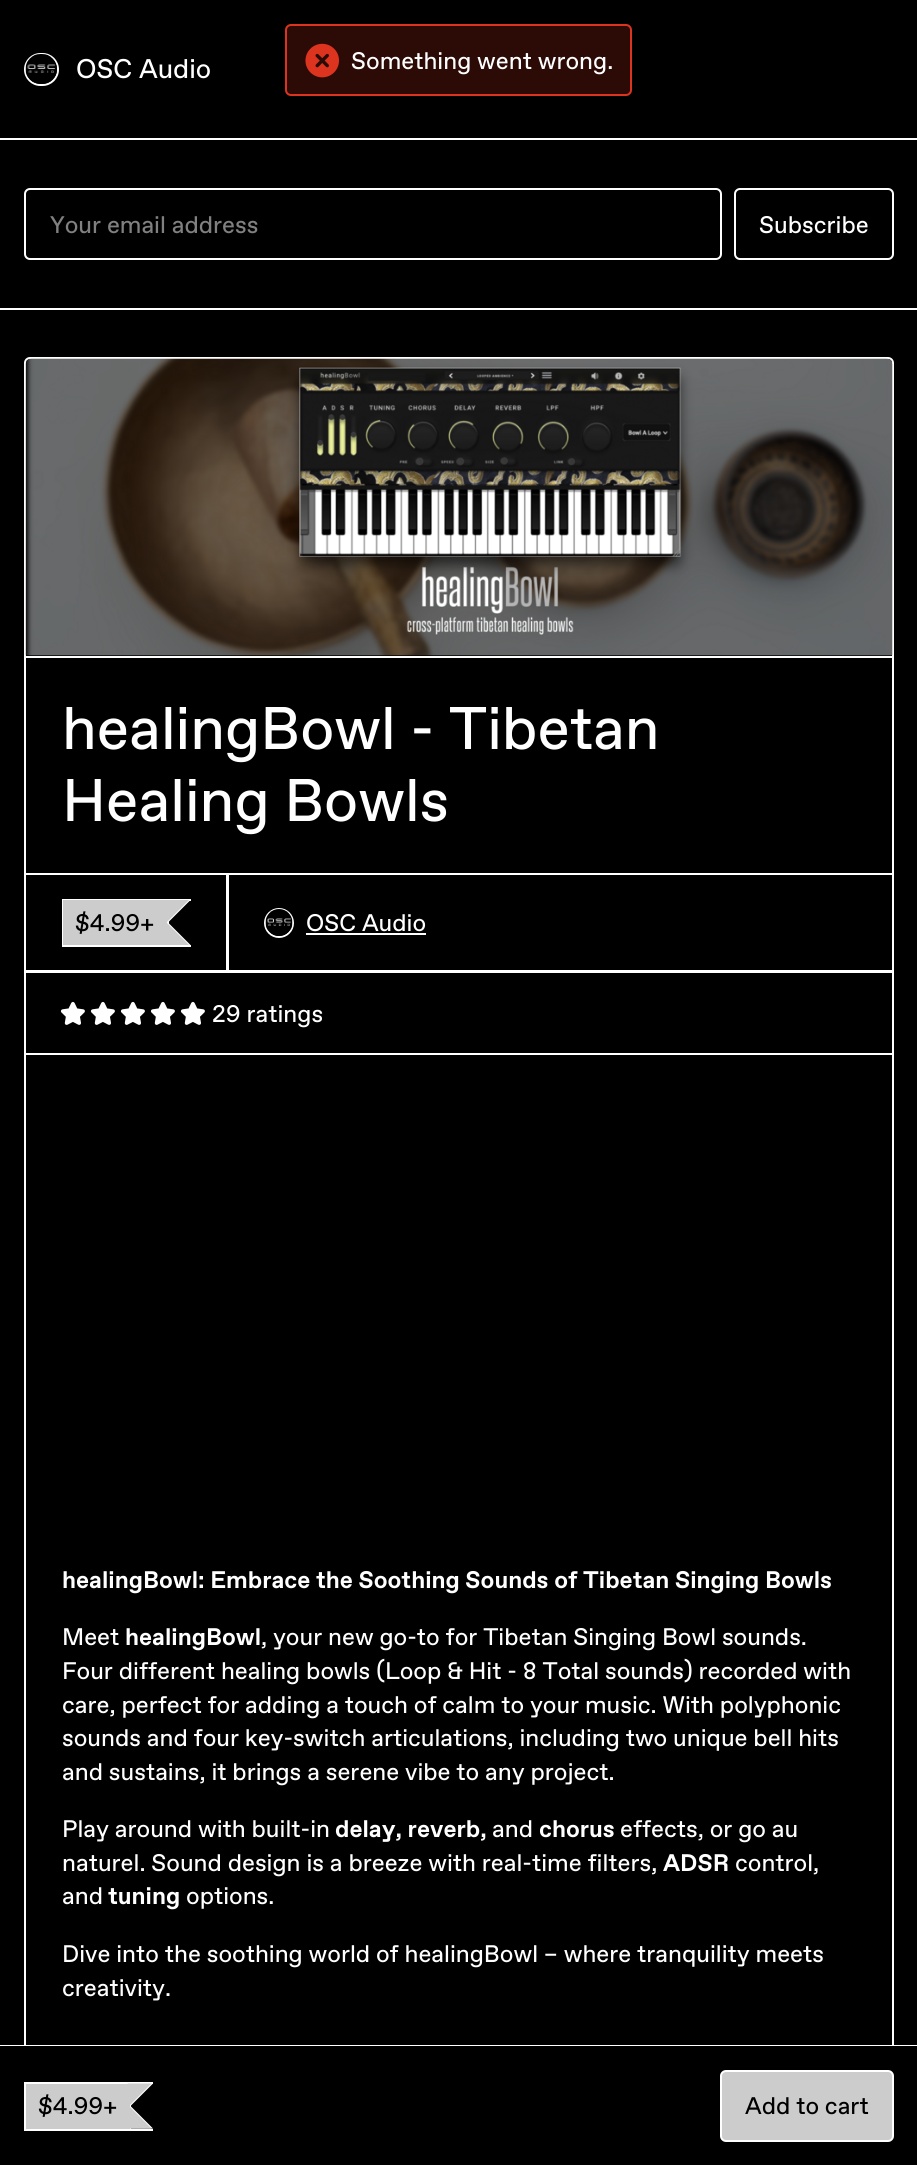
#include <cairo/cairo.h>
#include <math.h>
#include <stddef.h>


static void rounded_rect(cairo_t *cr, double x, double y, double w, double h, double r) {
  cairo_new_sub_path(cr);
  cairo_arc(cr, x + w - r, y + h - r, r, 0, M_PI / 2);
  cairo_arc(cr, x + r, y + h - r, r, M_PI / 2, M_PI);
  cairo_arc(cr, x + r, y + r, r, M_PI, 1.5 * M_PI);
  cairo_arc(cr, x + w - r, y + r, r, 1.5 * M_PI, 2 * M_PI);
  cairo_close_path(cr);
}

static void draw_image(cairo_t *cr, const char *path, double x, double y, double w, double h) {
  cairo_surface_t *image = cairo_image_surface_create_from_png(path);
  cairo_save(cr);
  cairo_set_source_surface(cr, image, x, y);
  cairo_rectangle(cr, x, y, w, h);
  cairo_fill(cr);
  cairo_restore(cr);
  cairo_surface_destroy(image);
}

static void draw(cairo_t *cr) {
  cairo_set_source_rgb(cr, 0, 0, 0);
  cairo_paint(cr);
  cairo_set_source_rgb(cr, 44 / 255.0, 10 / 255.0, 6 / 255.0);
  rounded_rect(cr, 286, 25, 345, 70, 5);
  cairo_fill_preserve(cr);
  cairo_set_source_rgb(cr, 220 / 255.0, 52 / 255.0, 30 / 255.0);
  cairo_stroke(cr);
  draw_image(cr, "images/1.png", 305, 43, 34, 35);
  cairo_set_source_rgb(cr, 1, 1, 1);
  cairo_rectangle(cr, 0, 138, 917, 2);
  cairo_fill(cr);
  rounded_rect(cr, 25, 54, 33, 31, 15.5);
  cairo_stroke(cr);
  draw_image(cr, "images/2.png", 25, 54, 32, 30);
  cairo_rectangle(cr, 0, 308, 917, 2);
  cairo_fill(cr);
  rounded_rect(cr, 25, 189, 696, 70, 5);
  cairo_stroke(cr);
  rounded_rect(cr, 735, 189, 158, 70, 5);
  cairo_stroke(cr);
  rounded_rect(cr, 25, 358, 868, 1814, 5);
  cairo_stroke(cr);
  cairo_rectangle(cr, 26, 656, 867, 2);
  cairo_fill(cr);
  draw_image(cr, "images/3.png", 25, 358, 868, 298);
  cairo_rectangle(cr, 25, 874, 202, 97);
  cairo_stroke(cr);
  cairo_rectangle(cr, 62, 899, 129, 2);
  cairo_fill(cr);
  cairo_rectangle(cr, 62, 945, 129, 2);
  cairo_fill(cr);
  cairo_rectangle(cr, 62, 899, 2, 48);
  cairo_fill(cr);
  cairo_set_source_rgb(cr, 204 / 255.0, 204 / 255.0, 204 / 255.0);
  cairo_rectangle(cr, 63, 900, 104, 45);
  cairo_fill(cr);
  cairo_set_source_rgb(cr, 1, 1, 1);
  cairo_new_path(cr);
  cairo_move_to(cr, 166.5, 900);
  cairo_line_to(cr, 190.5, 900);
  cairo_line_to(cr, 168, 922.5);
  cairo_close_path(cr);
  cairo_fill(cr);
  cairo_new_path(cr);
  cairo_move_to(cr, 190.5, 945);
  cairo_line_to(cr, 166.5, 945);
  cairo_line_to(cr, 168, 922.5);
  cairo_close_path(cr);
  cairo_fill(cr);
  cairo_rectangle(cr, 167, 920, 2, 5);
  cairo_fill(cr);
  cairo_set_source_rgb(cr, 204 / 255.0, 204 / 255.0, 204 / 255.0);
  cairo_new_path(cr);
  cairo_move_to(cr, 165, 900);
  cairo_line_to(cr, 189, 900);
  cairo_line_to(cr, 166.5, 922.5);
  cairo_close_path(cr);
  cairo_fill(cr);
  cairo_new_path(cr);
  cairo_move_to(cr, 189, 945);
  cairo_line_to(cr, 165, 945);
  cairo_line_to(cr, 166.5, 922.5);
  cairo_close_path(cr);
  cairo_fill(cr);
  cairo_rectangle(cr, 228, 874, 665, 97);
  cairo_set_source_rgb(cr, 1, 1, 1);
  cairo_stroke(cr);
  cairo_arc(cr, 279, 923, 14, 0, 2 * M_PI);
  cairo_stroke(cr);
  draw_image(cr, "images/4.png", 265, 909, 28, 27);
  cairo_rectangle(cr, 306, 933, 120, 2);
  cairo_fill(cr);
  cairo_rectangle(cr, 25, 972, 868, 82);
  cairo_stroke(cr);
  draw_image(cr, "images/5.png", 60, 1001, 25, 24);
  draw_image(cr, "images/5.png", 90, 1001, 25, 24);
  draw_image(cr, "images/5.png", 120, 1001, 25, 24);
  draw_image(cr, "images/5.png", 150, 1001, 25, 24);
  draw_image(cr, "images/5.png", 180, 1001, 25, 24);
  cairo_rectangle(cr, 0, 2045, 917, 1);
  cairo_fill(cr);
  cairo_set_source_rgb(cr, 0, 0, 0);
  cairo_rectangle(cr, 24, 2046, 870, 119);
  cairo_fill(cr);
  cairo_set_source_rgb(cr, 1, 1, 1);
  cairo_rectangle(cr, 24, 2082, 129, 2);
  cairo_fill(cr);
  cairo_rectangle(cr, 24, 2129, 129, 2);
  cairo_fill(cr);
  cairo_rectangle(cr, 24, 2082, 2, 48);
  cairo_fill(cr);
  cairo_set_source_rgb(cr, 204 / 255.0, 204 / 255.0, 204 / 255.0);
  cairo_rectangle(cr, 26, 2084, 102, 45);
  cairo_fill(cr);
  cairo_set_source_rgb(cr, 1, 1, 1);
  cairo_new_path(cr);
  cairo_move_to(cr, 129, 2083.5);
  cairo_line_to(cr, 153, 2083.5);
  cairo_line_to(cr, 130.5, 2106);
  cairo_close_path(cr);
  cairo_move_to(cr, 153, 2128.5);
  cairo_line_to(cr, 129, 2128.5);
  cairo_line_to(cr, 130.5, 2106);
  cairo_close_path(cr);
  cairo_fill(cr);
  cairo_rectangle(cr, 130, 2104, 1, 25);
  cairo_fill(cr);
  cairo_set_source_rgb(cr, 204 / 255.0, 204 / 255.0, 204 / 255.0);
  cairo_new_path(cr);
  cairo_move_to(cr, 127.5, 2083.5);
  cairo_line_to(cr, 151.5, 2083.5);
  cairo_line_to(cr, 129, 2106);
  cairo_close_path(cr);
  cairo_move_to(cr, 151.5, 2128.5);
  cairo_line_to(cr, 127.5, 2128.5);
  cairo_line_to(cr, 129, 2106);
  cairo_close_path(cr);
  cairo_fill(cr);
  cairo_rectangle(cr, 128, 2084, 2, 45);
  cairo_fill(cr);
  rounded_rect(cr, 721, 2071, 172, 70, 5);
  cairo_fill_preserve(cr);
  cairo_set_source_rgb(cr, 1, 1, 1);
  cairo_stroke(cr);
  cairo_select_font_face(cr, "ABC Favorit", CAIRO_FONT_SLANT_NORMAL, CAIRO_FONT_WEIGHT_NORMAL);
  cairo_set_font_size(cr, 24);
  cairo_move_to(cr, 351, 69);
  cairo_show_text(cr, "Something went wrong.");
  cairo_set_font_size(cr, 27);
  cairo_move_to(cr, 76, 78);
  cairo_show_text(cr, "OSC Audio");
  cairo_set_font_size(cr, 24);
  cairo_set_source_rgb(cr, 128 / 255.0, 128 / 255.0, 128 / 255.0);
  cairo_move_to(cr, 50, 233);
  cairo_show_text(cr, "Your email address");
  cairo_set_source_rgb(cr, 1, 1, 1);
  cairo_move_to(cr, 759, 233);
  cairo_show_text(cr, "Subscribe");
  cairo_set_font_size(cr, 60);
  cairo_move_to(cr, 62, 749);
  cairo_show_text(cr, "healingBowl - Tibetan");
  cairo_move_to(cr, 62, 821);
  cairo_show_text(cr, "Healing Bowls");
  cairo_set_font_size(cr, 24);
  cairo_set_source_rgb(cr, 0, 0, 0);
  cairo_move_to(cr, 75, 931);
  cairo_show_text(cr, "$4.99+");
  cairo_set_source_rgb(cr, 1, 1, 1);
  cairo_move_to(cr, 306, 931);
  cairo_show_text(cr, "OSC Audio");
  cairo_move_to(cr, 212, 1022);
  cairo_show_text(cr, "29 ratings");
  cairo_select_font_face(cr, "ABC Favorit", CAIRO_FONT_SLANT_NORMAL, CAIRO_FONT_WEIGHT_BOLD);
  cairo_move_to(cr, 62, 1588);
  cairo_show_text(cr, "healingBowl: Embrace the Soothing Sounds of Tibetan Singing Bowls");
  cairo_select_font_face(cr, "ABC Favorit", CAIRO_FONT_SLANT_NORMAL, CAIRO_FONT_WEIGHT_NORMAL);
  cairo_move_to(cr, 62, 1645);
  cairo_show_text(cr, "Meet");
  cairo_select_font_face(cr, "ABC Favorit", CAIRO_FONT_SLANT_NORMAL, CAIRO_FONT_WEIGHT_BOLD);
  cairo_move_to(cr, 125, 1645);
  cairo_show_text(cr, "healingBowl");
  cairo_select_font_face(cr, "ABC Favorit", CAIRO_FONT_SLANT_NORMAL, CAIRO_FONT_WEIGHT_NORMAL);
  cairo_move_to(cr, 261, 1645);
  cairo_show_text(cr, ", your new go-to for Tibetan Singing Bowl sounds.");
  cairo_move_to(cr, 62, 1679);
  cairo_show_text(cr, "Four different healing bowls (Loop & Hit - 8 Total sounds) recorded with");
  cairo_move_to(cr, 62, 1713);
  cairo_show_text(cr, "care, perfect for adding a touch of calm to your music. With polyphonic");
  cairo_move_to(cr, 62, 1746);
  cairo_show_text(cr, "sounds and four key-switch articulations, including two unique bell hits");
  cairo_move_to(cr, 62, 1780);
  cairo_show_text(cr, "and sustains, it brings a serene vibe to any project.");
  cairo_move_to(cr, 62, 1837);
  cairo_show_text(cr, "Play around with built-in");
  cairo_select_font_face(cr, "ABC Favorit", CAIRO_FONT_SLANT_NORMAL, CAIRO_FONT_WEIGHT_BOLD);
  cairo_move_to(cr, 335, 1837);
  cairo_show_text(cr, "delay, reverb,");
  cairo_select_font_face(cr, "ABC Favorit", CAIRO_FONT_SLANT_NORMAL, CAIRO_FONT_WEIGHT_NORMAL);
  cairo_move_to(cr, 492, 1837);
  cairo_show_text(cr, "and");
  cairo_select_font_face(cr, "ABC Favorit", CAIRO_FONT_SLANT_NORMAL, CAIRO_FONT_WEIGHT_BOLD);
  cairo_move_to(cr, 539, 1837);
  cairo_show_text(cr, "chorus");
  cairo_select_font_face(cr, "ABC Favorit", CAIRO_FONT_SLANT_NORMAL, CAIRO_FONT_WEIGHT_NORMAL);
  cairo_move_to(cr, 620, 1837);
  cairo_show_text(cr, "effects, or go au");
  cairo_move_to(cr, 62, 1871);
  cairo_show_text(cr, "naturel. Sound design is a breeze with real-time filters,");
  cairo_select_font_face(cr, "ABC Favorit", CAIRO_FONT_SLANT_NORMAL, CAIRO_FONT_WEIGHT_BOLD);
  cairo_move_to(cr, 663, 1871);
  cairo_show_text(cr, "ADSR");
  cairo_select_font_face(cr, "ABC Favorit", CAIRO_FONT_SLANT_NORMAL, CAIRO_FONT_WEIGHT_NORMAL);
  cairo_move_to(cr, 735, 1871);
  cairo_show_text(cr, "control,");
  cairo_move_to(cr, 62, 1904);
  cairo_show_text(cr, "and");
  cairo_select_font_face(cr, "ABC Favorit", CAIRO_FONT_SLANT_NORMAL, CAIRO_FONT_WEIGHT_BOLD);
  cairo_move_to(cr, 108, 1904);
  cairo_show_text(cr, "tuning");
  cairo_select_font_face(cr, "ABC Favorit", CAIRO_FONT_SLANT_NORMAL, CAIRO_FONT_WEIGHT_NORMAL);
  cairo_move_to(cr, 186, 1904);
  cairo_show_text(cr, "options.");
  cairo_move_to(cr, 62, 1962);
  cairo_show_text(cr, "Dive into the soothing world of healingBowl – where tranquility meets");
  cairo_move_to(cr, 62, 1996);
  cairo_show_text(cr, "creativity.");
  cairo_set_source_rgb(cr, 0, 0, 0);
  cairo_move_to(cr, 38, 2114);
  cairo_show_text(cr, "$4.99+");
  cairo_move_to(cr, 745, 2114);
  cairo_show_text(cr, "Add to cart");
}

int main(void) {
  cairo_surface_t *surface = cairo_image_surface_create(CAIRO_FORMAT_RGB24, 917, 2165);
  cairo_t *cr = cairo_create(surface);
  cairo_font_options_t *options = cairo_font_options_create();
  cairo_font_options_set_hint_metrics(options, CAIRO_HINT_METRICS_OFF);
  cairo_font_options_set_hint_style(options, CAIRO_HINT_STYLE_NONE);
  cairo_set_font_options(cr, options);
  cairo_set_miter_limit(cr, 4);
  draw(cr);
  cairo_surface_write_to_png(surface, "out.png");
  cairo_font_options_destroy(options);
  cairo_destroy(cr);
  cairo_surface_destroy(surface);
  return 0;
}
